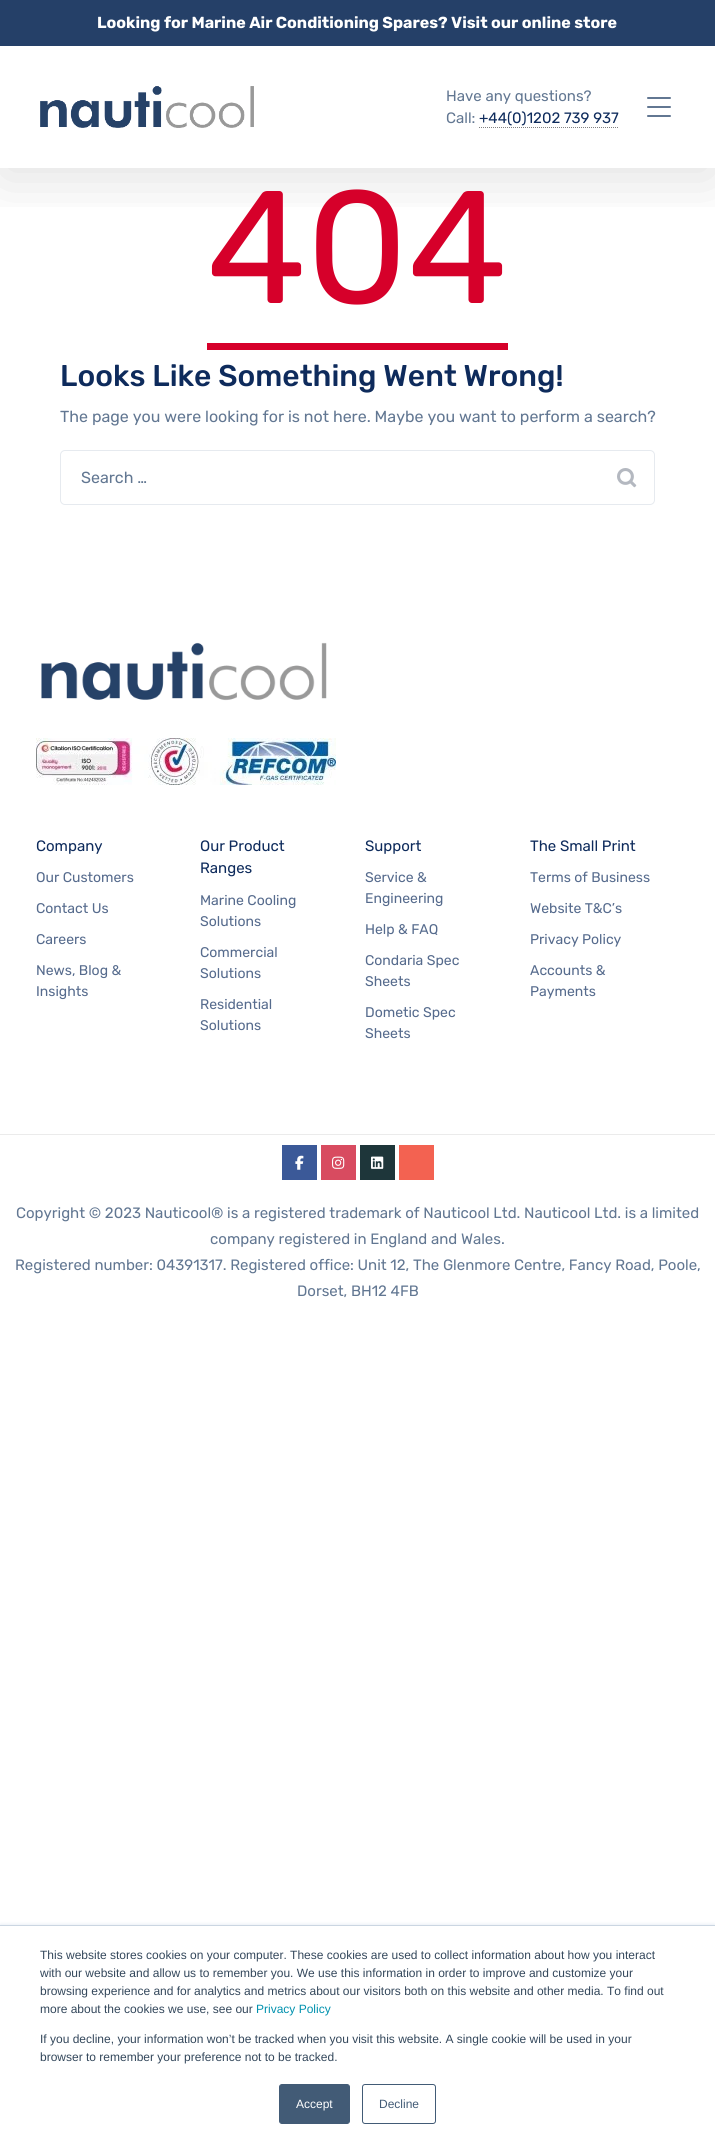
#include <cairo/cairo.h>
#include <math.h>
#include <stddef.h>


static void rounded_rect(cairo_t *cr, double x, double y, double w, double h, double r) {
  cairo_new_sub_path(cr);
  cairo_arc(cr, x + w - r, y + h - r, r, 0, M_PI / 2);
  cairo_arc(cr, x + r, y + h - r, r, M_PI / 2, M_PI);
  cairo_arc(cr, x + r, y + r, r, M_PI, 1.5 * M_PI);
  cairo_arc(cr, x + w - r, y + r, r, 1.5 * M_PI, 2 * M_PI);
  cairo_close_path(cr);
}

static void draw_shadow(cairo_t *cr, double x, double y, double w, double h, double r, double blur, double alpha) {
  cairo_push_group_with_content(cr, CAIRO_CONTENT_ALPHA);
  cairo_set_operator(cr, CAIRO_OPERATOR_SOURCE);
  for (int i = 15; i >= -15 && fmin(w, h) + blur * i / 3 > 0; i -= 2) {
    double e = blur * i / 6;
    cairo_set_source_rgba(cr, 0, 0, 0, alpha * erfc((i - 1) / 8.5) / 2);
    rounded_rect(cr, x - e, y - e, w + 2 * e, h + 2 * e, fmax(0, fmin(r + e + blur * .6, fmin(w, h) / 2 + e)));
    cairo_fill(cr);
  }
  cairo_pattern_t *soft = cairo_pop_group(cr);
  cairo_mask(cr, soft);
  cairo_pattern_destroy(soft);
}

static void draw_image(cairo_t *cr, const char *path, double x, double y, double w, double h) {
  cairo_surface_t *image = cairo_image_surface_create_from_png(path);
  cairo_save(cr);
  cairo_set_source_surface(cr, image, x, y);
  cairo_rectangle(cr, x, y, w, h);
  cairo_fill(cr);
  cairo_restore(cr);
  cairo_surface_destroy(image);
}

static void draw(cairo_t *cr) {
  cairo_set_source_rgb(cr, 1, 1, 1);
  cairo_paint(cr);
  cairo_save(cr);
  cairo_rectangle(cr, 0, 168, 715, 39);
  cairo_clip(cr);
  cairo_set_source_rgb(cr, 0, 0, 0);
  draw_shadow(cr, 0, 56, 715, 122, 0, 30, 0.12);
  cairo_restore(cr);
  cairo_set_source_rgb(cr, 37 / 255.0, 64 / 255.0, 104 / 255.0);
  cairo_rectangle(cr, 0, 0, 715, 46);
  cairo_fill(cr);
  draw_image(cr, "images/1.png", 40, 86, 214, 42);
  cairo_new_path(cr);
  cairo_move_to(cr, 479, 127.5);
  cairo_line_to(cr, 619, 127.5);
  cairo_set_source_rgb(cr, 128 / 255.0, 128 / 255.0, 128 / 255.0);
  cairo_set_line_width(cr, 1);
  cairo_set_dash(cr, (double[]){1, 1}, 2, 0);
  cairo_stroke(cr);
  cairo_set_source_rgb(cr, 98 / 255.0, 119 / 255.0, 146 / 255.0);
  rounded_rect(cr, 647, 97, 24, 2, 1);
  cairo_fill(cr);
  rounded_rect(cr, 647, 115, 24, 2, 1);
  cairo_fill(cr);
  rounded_rect(cr, 647, 106, 24, 2, 1);
  cairo_fill(cr);
  cairo_set_source_rgb(cr, 214 / 255.0, 0, 42 / 255.0);
  cairo_rectangle(cr, 207, 343, 301, 7);
  cairo_fill(cr);
  rounded_rect(cr, 60.5, 450.5, 594, 54, 4.5);
  cairo_set_source_rgb(cr, 230 / 255.0, 234 / 255.0, 239 / 255.0);
  cairo_set_dash(cr, NULL, 0, 0);
  cairo_stroke(cr);
  draw_image(cr, "images/2.png", 617, 468, 20, 20);
  draw_image(cr, "images/3.png", 41, 642, 286, 59);
  draw_image(cr, "images/4.png", 36, 738, 300, 47);
  cairo_set_source_rgb(cr, 235 / 255.0, 235 / 255.0, 235 / 255.0);
  cairo_rectangle(cr, 0, 1134, 715, 1);
  cairo_fill(cr);
  cairo_set_source_rgb(cr, 59 / 255.0, 89 / 255.0, 152 / 255.0);
  cairo_rectangle(cr, 282, 1145, 35, 35);
  cairo_fill(cr);
  draw_image(cr, "images/5.png", 295, 1155, 9, 15);
  cairo_set_source_rgb(cr, 216 / 255.0, 75 / 255.0, 96 / 255.0);
  cairo_rectangle(cr, 321, 1145, 35, 35);
  cairo_fill(cr);
  draw_image(cr, "images/6.png", 332, 1156, 13, 13);
  cairo_set_source_rgb(cr, 30 / 255.0, 54 / 255.0, 58 / 255.0);
  cairo_rectangle(cr, 360, 1145, 35, 35);
  cairo_fill(cr);
  draw_image(cr, "images/7.png", 371, 1156, 13, 13);
  cairo_set_source_rgb(cr, 243 / 255.0, 98 / 255.0, 81 / 255.0);
  cairo_rectangle(cr, 399, 1145, 35, 35);
  cairo_fill(cr);
  cairo_save(cr);
  cairo_rectangle(cr, 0, 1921, 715, 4);
  cairo_clip(cr);
  cairo_set_source_rgb(cr, 234 / 255.0, 240 / 255.0, 246 / 255.0);
  draw_shadow(cr, 0, 1924, 715, 225, 0, 1.5, 1);
  cairo_restore(cr);
  cairo_set_source_rgb(cr, 203 / 255.0, 214 / 255.0, 226 / 255.0);
  cairo_rectangle(cr, 0, 1925, 715, 1);
  cairo_fill(cr);
  cairo_set_source_rgb(cr, 66 / 255.0, 91 / 255.0, 118 / 255.0);
  rounded_rect(cr, 279.5, 2084.5, 70, 39, 2.5);
  cairo_fill_preserve(cr);
  cairo_stroke(cr);
  rounded_rect(cr, 362.5, 2084.5, 73, 39, 2.5);
  cairo_stroke(cr);
  cairo_select_font_face(cr, "Rubik", CAIRO_FONT_SLANT_NORMAL, CAIRO_FONT_WEIGHT_BOLD);
  cairo_set_font_size(cr, 16);
  cairo_set_source_rgb(cr, 1, 1, 1);
  cairo_move_to(cr, 97, 28);
  cairo_show_text(cr, "Looking for Marine Air Conditioning Spares? Visit our online store");
  cairo_select_font_face(cr, "Rubik", CAIRO_FONT_SLANT_NORMAL, CAIRO_FONT_WEIGHT_NORMAL);
  cairo_set_font_size(cr, 15);
  cairo_set_source_rgb(cr, 98 / 255.0, 119 / 255.0, 146 / 255.0);
  cairo_move_to(cr, 446, 101);
  cairo_show_text(cr, "Have any questions?");
  cairo_move_to(cr, 446, 123);
  cairo_show_text(cr, "Call:");
  cairo_set_source_rgb(cr, 14 / 255.0, 43 / 255.0, 92 / 255.0);
  cairo_move_to(cr, 479, 123);
  cairo_show_text(cr, "+44(0)1202 739 937");
  cairo_set_font_size(cr, 160);
  cairo_set_source_rgb(cr, 214 / 255.0, 0, 42 / 255.0);
  cairo_move_to(cr, 207, 303);
  cairo_show_text(cr, "404");
  cairo_select_font_face(cr, "Rubik Medium", CAIRO_FONT_SLANT_NORMAL, CAIRO_FONT_WEIGHT_NORMAL);
  cairo_set_font_size(cr, 30);
  cairo_set_source_rgb(cr, 14 / 255.0, 43 / 255.0, 92 / 255.0);
  cairo_move_to(cr, 60, 386);
  cairo_show_text(cr, "Looks Like Something Went Wrong!");
  cairo_select_font_face(cr, "Rubik", CAIRO_FONT_SLANT_NORMAL, CAIRO_FONT_WEIGHT_NORMAL);
  cairo_set_font_size(cr, 16);
  cairo_set_source_rgb(cr, 98 / 255.0, 119 / 255.0, 146 / 255.0);
  cairo_move_to(cr, 60, 422);
  cairo_show_text(cr, "The page you were looking for is not here. Maybe you want to perform a search?");
  cairo_move_to(cr, 81, 483);
  cairo_show_text(cr, "Search …");
  cairo_set_font_size(cr, 15);
  cairo_set_source_rgb(cr, 14 / 255.0, 43 / 255.0, 92 / 255.0);
  cairo_move_to(cr, 36, 851);
  cairo_show_text(cr, "Company");
  cairo_set_font_size(cr, 14);
  cairo_set_source_rgb(cr, 86 / 255.0, 107 / 255.0, 141 / 255.0);
  cairo_move_to(cr, 36, 882);
  cairo_show_text(cr, "Our Customers");
  cairo_move_to(cr, 36, 913);
  cairo_show_text(cr, "Contact Us");
  cairo_move_to(cr, 36, 944);
  cairo_show_text(cr, "Careers");
  cairo_move_to(cr, 36, 975);
  cairo_show_text(cr, "News, Blog &");
  cairo_move_to(cr, 36, 996);
  cairo_show_text(cr, "Insights");
  cairo_set_font_size(cr, 15);
  cairo_set_source_rgb(cr, 14 / 255.0, 43 / 255.0, 92 / 255.0);
  cairo_move_to(cr, 200, 851);
  cairo_show_text(cr, "Our Product");
  cairo_move_to(cr, 200, 873);
  cairo_show_text(cr, "Ranges");
  cairo_set_font_size(cr, 14);
  cairo_set_source_rgb(cr, 86 / 255.0, 107 / 255.0, 141 / 255.0);
  cairo_move_to(cr, 200, 905);
  cairo_show_text(cr, "Marine Cooling");
  cairo_move_to(cr, 200, 926);
  cairo_show_text(cr, "Solutions");
  cairo_move_to(cr, 200, 957);
  cairo_show_text(cr, "Commercial");
  cairo_move_to(cr, 200, 978);
  cairo_show_text(cr, "Solutions");
  cairo_move_to(cr, 200, 1009);
  cairo_show_text(cr, "Residential");
  cairo_move_to(cr, 200, 1030);
  cairo_show_text(cr, "Solutions");
  cairo_set_font_size(cr, 15);
  cairo_set_source_rgb(cr, 14 / 255.0, 43 / 255.0, 92 / 255.0);
  cairo_move_to(cr, 365, 851);
  cairo_show_text(cr, "Support");
  cairo_set_font_size(cr, 14);
  cairo_set_source_rgb(cr, 86 / 255.0, 107 / 255.0, 141 / 255.0);
  cairo_move_to(cr, 365, 882);
  cairo_show_text(cr, "Service &");
  cairo_move_to(cr, 365, 903);
  cairo_show_text(cr, "Engineering");
  cairo_move_to(cr, 365, 934);
  cairo_show_text(cr, "Help & FAQ");
  cairo_move_to(cr, 365, 965);
  cairo_show_text(cr, "Condaria Spec");
  cairo_move_to(cr, 365, 986);
  cairo_show_text(cr, "Sheets");
  cairo_move_to(cr, 365, 1017);
  cairo_show_text(cr, "Dometic Spec");
  cairo_move_to(cr, 365, 1038);
  cairo_show_text(cr, "Sheets");
  cairo_set_font_size(cr, 15);
  cairo_set_source_rgb(cr, 14 / 255.0, 43 / 255.0, 92 / 255.0);
  cairo_move_to(cr, 530, 851);
  cairo_show_text(cr, "The Small Print");
  cairo_set_font_size(cr, 14);
  cairo_set_source_rgb(cr, 86 / 255.0, 107 / 255.0, 141 / 255.0);
  cairo_move_to(cr, 530, 882);
  cairo_show_text(cr, "Terms of Business");
  cairo_move_to(cr, 530, 913);
  cairo_show_text(cr, "Website T&C’s");
  cairo_move_to(cr, 530, 944);
  cairo_show_text(cr, "Privacy Policy");
  cairo_move_to(cr, 530, 975);
  cairo_show_text(cr, "Accounts &");
  cairo_move_to(cr, 530, 996);
  cairo_show_text(cr, "Payments");
  cairo_set_font_size(cr, 15);
  cairo_set_source_rgb(cr, 98 / 255.0, 119 / 255.0, 146 / 255.0);
  cairo_move_to(cr, 16, 1218);
  cairo_show_text(cr, "Copyright © 2023 Nauticool® is a registered trademark of Nauticool Ltd. Nauticool Ltd. is a limited");
  cairo_move_to(cr, 210, 1244);
  cairo_show_text(cr, "company registered in England and Wales.");
  cairo_move_to(cr, 15, 1270);
  cairo_show_text(cr, "Registered number: 04391317. Registered office: Unit 12, The Glenmore Centre, Fancy Road, Poole,");
  cairo_move_to(cr, 297, 1296);
  cairo_show_text(cr, "Dorset, BH12 4FB");
  cairo_select_font_face(cr, "Liberation Sans", CAIRO_FONT_SLANT_NORMAL, CAIRO_FONT_WEIGHT_NORMAL);
  cairo_set_font_size(cr, 12);
  cairo_set_source_rgb(cr, 51 / 255.0, 71 / 255.0, 91 / 255.0);
  cairo_move_to(cr, 40, 1959);
  cairo_show_text(cr, "This website stores cookies on your computer. These cookies are used to collect information about how you interact");
  cairo_move_to(cr, 40, 1977);
  cairo_show_text(cr, "with our website and allow us to remember you. We use this information in order to improve and customize your");
  cairo_move_to(cr, 40, 1995);
  cairo_show_text(cr, "browsing experience and for analytics and metrics about our visitors both on this website and other media. To find out");
  cairo_move_to(cr, 40, 2013);
  cairo_show_text(cr, "more about the cookies we use, see our");
  cairo_set_source_rgb(cr, 0, 145 / 255.0, 174 / 255.0);
  cairo_move_to(cr, 256, 2013);
  cairo_show_text(cr, "Privacy Policy");
  cairo_set_source_rgb(cr, 51 / 255.0, 71 / 255.0, 91 / 255.0);
  cairo_move_to(cr, 40, 2043);
  cairo_show_text(cr, "If you decline, your information won’t be tracked when you visit this website. A single cookie will be used in your");
  cairo_move_to(cr, 40, 2061);
  cairo_show_text(cr, "browser to remember your preference not to be tracked.");
  cairo_set_source_rgb(cr, 1, 1, 1);
  cairo_move_to(cr, 296, 2108);
  cairo_show_text(cr, "Accept");
  cairo_set_source_rgb(cr, 66 / 255.0, 91 / 255.0, 118 / 255.0);
  cairo_move_to(cr, 379, 2108);
  cairo_show_text(cr, "Decline");
}

int main(void) {
  cairo_surface_t *surface = cairo_image_surface_create(CAIRO_FORMAT_RGB24, 715, 2150);
  cairo_t *cr = cairo_create(surface);
  cairo_font_options_t *options = cairo_font_options_create();
  cairo_font_options_set_hint_metrics(options, CAIRO_HINT_METRICS_OFF);
  cairo_font_options_set_hint_style(options, CAIRO_HINT_STYLE_NONE);
  cairo_set_font_options(cr, options);
  cairo_set_miter_limit(cr, 4);
  draw(cr);
  cairo_surface_write_to_png(surface, "out.png");
  cairo_font_options_destroy(options);
  cairo_destroy(cr);
  cairo_surface_destroy(surface);
  return 0;
}
